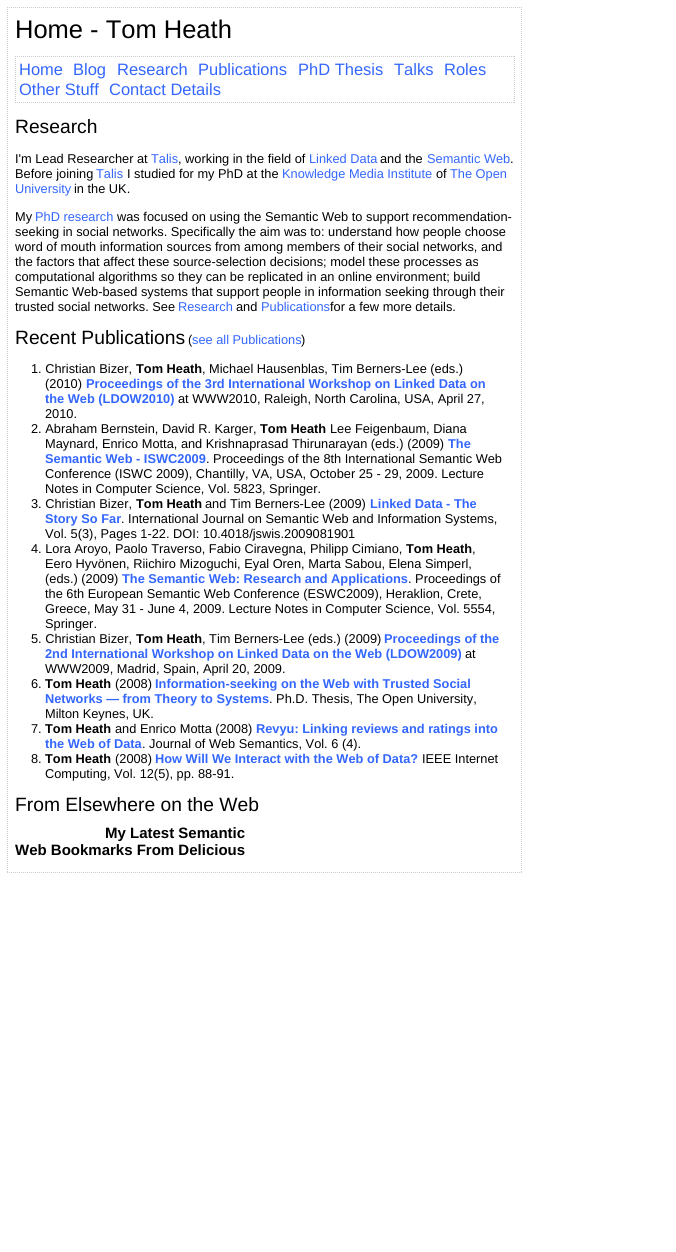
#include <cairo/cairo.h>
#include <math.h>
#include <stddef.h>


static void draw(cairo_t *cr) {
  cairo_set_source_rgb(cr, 1, 1, 1);
  cairo_paint(cr);
  cairo_new_path(cr);
  cairo_move_to(cr, 7, 7.5);
  cairo_line_to(cr, 522, 7.5);
  cairo_set_source_rgb(cr, 204 / 255.0, 204 / 255.0, 204 / 255.0);
  cairo_set_line_width(cr, 1);
  cairo_set_dash(cr, (double[]){1, 1}, 2, 0);
  cairo_stroke(cr);
  cairo_new_path(cr);
  cairo_move_to(cr, 521.5, 7);
  cairo_line_to(cr, 521.5, 873);
  cairo_stroke(cr);
  cairo_new_path(cr);
  cairo_move_to(cr, 7, 872.5);
  cairo_line_to(cr, 522, 872.5);
  cairo_stroke(cr);
  cairo_new_path(cr);
  cairo_move_to(cr, 7.5, 7);
  cairo_line_to(cr, 7.5, 873);
  cairo_stroke(cr);
  cairo_new_path(cr);
  cairo_move_to(cr, 15, 56.5);
  cairo_line_to(cr, 515, 56.5);
  cairo_stroke(cr);
  cairo_new_path(cr);
  cairo_move_to(cr, 514.5, 56);
  cairo_line_to(cr, 514.5, 103);
  cairo_stroke(cr);
  cairo_new_path(cr);
  cairo_move_to(cr, 15, 102.5);
  cairo_line_to(cr, 515, 102.5);
  cairo_stroke(cr);
  cairo_new_path(cr);
  cairo_move_to(cr, 15.5, 56);
  cairo_line_to(cr, 15.5, 103);
  cairo_stroke(cr);
  cairo_select_font_face(cr, "Liberation Sans", CAIRO_FONT_SLANT_NORMAL, CAIRO_FONT_WEIGHT_NORMAL);
  cairo_set_font_size(cr, 25.5);
  cairo_set_source_rgb(cr, 0, 0, 0);
  cairo_move_to(cr, 15, 38);
  cairo_show_text(cr, "Home - Tom Heath");
  cairo_set_font_size(cr, 16.5);
  cairo_set_source_rgb(cr, 51 / 255.0, 102 / 255.0, 1);
  cairo_move_to(cr, 19, 75);
  cairo_show_text(cr, "Home");
  cairo_move_to(cr, 73, 75);
  cairo_show_text(cr, "Blog");
  cairo_move_to(cr, 117, 75);
  cairo_show_text(cr, "Research");
  cairo_move_to(cr, 198, 75);
  cairo_show_text(cr, "Publications");
  cairo_move_to(cr, 298, 75);
  cairo_show_text(cr, "PhD Thesis");
  cairo_move_to(cr, 394, 75);
  cairo_show_text(cr, "Talks");
  cairo_move_to(cr, 444, 75);
  cairo_show_text(cr, "Roles");
  cairo_move_to(cr, 19, 95);
  cairo_show_text(cr, "Other Stuff");
  cairo_move_to(cr, 109, 95);
  cairo_show_text(cr, "Contact Details");
  cairo_set_font_size(cr, 19.25);
  cairo_set_source_rgb(cr, 0, 0, 0);
  cairo_move_to(cr, 15, 133);
  cairo_show_text(cr, "Research");
  cairo_set_font_size(cr, 12.8);
  cairo_move_to(cr, 15, 163);
  cairo_show_text(cr, "I'm Lead Researcher at");
  cairo_set_source_rgb(cr, 51 / 255.0, 102 / 255.0, 1);
  cairo_move_to(cr, 151, 163);
  cairo_show_text(cr, "Talis");
  cairo_set_source_rgb(cr, 0, 0, 0);
  cairo_move_to(cr, 178, 163);
  cairo_show_text(cr, ", working in the field of");
  cairo_set_source_rgb(cr, 51 / 255.0, 102 / 255.0, 1);
  cairo_move_to(cr, 309, 163);
  cairo_show_text(cr, "Linked Data");
  cairo_set_source_rgb(cr, 0, 0, 0);
  cairo_move_to(cr, 380, 163);
  cairo_show_text(cr, "and the");
  cairo_set_source_rgb(cr, 51 / 255.0, 102 / 255.0, 1);
  cairo_move_to(cr, 427, 163);
  cairo_show_text(cr, "Semantic Web");
  cairo_set_source_rgb(cr, 0, 0, 0);
  cairo_move_to(cr, 510, 163);
  cairo_show_text(cr, ".");
  cairo_move_to(cr, 15, 178);
  cairo_show_text(cr, "Before joining");
  cairo_set_source_rgb(cr, 51 / 255.0, 102 / 255.0, 1);
  cairo_move_to(cr, 96, 178);
  cairo_show_text(cr, "Talis");
  cairo_set_source_rgb(cr, 0, 0, 0);
  cairo_move_to(cr, 127, 178);
  cairo_show_text(cr, "I studied for my PhD at the");
  cairo_set_source_rgb(cr, 51 / 255.0, 102 / 255.0, 1);
  cairo_move_to(cr, 282, 178);
  cairo_show_text(cr, "Knowledge Media Institute");
  cairo_set_source_rgb(cr, 0, 0, 0);
  cairo_move_to(cr, 436, 178);
  cairo_show_text(cr, "of");
  cairo_set_source_rgb(cr, 51 / 255.0, 102 / 255.0, 1);
  cairo_move_to(cr, 450, 178);
  cairo_show_text(cr, "The Open");
  cairo_move_to(cr, 15, 193);
  cairo_show_text(cr, "University");
  cairo_set_source_rgb(cr, 0, 0, 0);
  cairo_move_to(cr, 74, 193);
  cairo_show_text(cr, "in the UK.");
  cairo_move_to(cr, 15, 221);
  cairo_show_text(cr, "My");
  cairo_set_source_rgb(cr, 51 / 255.0, 102 / 255.0, 1);
  cairo_move_to(cr, 35, 221);
  cairo_show_text(cr, "PhD research");
  cairo_set_source_rgb(cr, 0, 0, 0);
  cairo_move_to(cr, 117, 221);
  cairo_show_text(cr, "was focused on using the Semantic Web to support recommendation-");
  cairo_move_to(cr, 15, 236);
  cairo_show_text(cr, "seeking in social networks. Specifically the aim was to: understand how people choose");
  cairo_move_to(cr, 15, 251);
  cairo_show_text(cr, "word of mouth information sources from among members of their social networks, and");
  cairo_move_to(cr, 15, 266);
  cairo_show_text(cr, "the factors that affect these source-selection decisions; model these processes as");
  cairo_move_to(cr, 15, 281);
  cairo_show_text(cr, "computational algorithms so they can be replicated in an online environment; build");
  cairo_move_to(cr, 15, 296);
  cairo_show_text(cr, "Semantic Web-based systems that support people in information seeking through their");
  cairo_move_to(cr, 15, 311);
  cairo_show_text(cr, "trusted social networks. See");
  cairo_set_source_rgb(cr, 51 / 255.0, 102 / 255.0, 1);
  cairo_move_to(cr, 178, 311);
  cairo_show_text(cr, "Research");
  cairo_set_source_rgb(cr, 0, 0, 0);
  cairo_move_to(cr, 236, 311);
  cairo_show_text(cr, "and");
  cairo_set_source_rgb(cr, 51 / 255.0, 102 / 255.0, 1);
  cairo_move_to(cr, 261, 311);
  cairo_show_text(cr, "Publications");
  cairo_set_source_rgb(cr, 0, 0, 0);
  cairo_move_to(cr, 330, 311);
  cairo_show_text(cr, "for a few more details.");
  cairo_set_font_size(cr, 19.25);
  cairo_move_to(cr, 15, 344);
  cairo_show_text(cr, "Recent Publications");
  cairo_set_font_size(cr, 12.8);
  cairo_move_to(cr, 188, 344);
  cairo_show_text(cr, "(");
  cairo_set_source_rgb(cr, 51 / 255.0, 102 / 255.0, 1);
  cairo_move_to(cr, 192, 344);
  cairo_show_text(cr, "see all Publications");
  cairo_set_source_rgb(cr, 0, 0, 0);
  cairo_move_to(cr, 301, 344);
  cairo_show_text(cr, ")");
  cairo_move_to(cr, 31, 373);
  cairo_show_text(cr, "1. Christian Bizer,");
  cairo_select_font_face(cr, "Liberation Sans", CAIRO_FONT_SLANT_NORMAL, CAIRO_FONT_WEIGHT_BOLD);
  cairo_move_to(cr, 136, 373);
  cairo_show_text(cr, "Tom Heath");
  cairo_select_font_face(cr, "Liberation Sans", CAIRO_FONT_SLANT_NORMAL, CAIRO_FONT_WEIGHT_NORMAL);
  cairo_move_to(cr, 202, 373);
  cairo_show_text(cr, ", Michael Hausenblas, Tim Berners-Lee (eds.)");
  cairo_move_to(cr, 45, 388);
  cairo_show_text(cr, "(2010)");
  cairo_select_font_face(cr, "Liberation Sans", CAIRO_FONT_SLANT_NORMAL, CAIRO_FONT_WEIGHT_BOLD);
  cairo_set_source_rgb(cr, 51 / 255.0, 102 / 255.0, 1);
  cairo_move_to(cr, 86, 388);
  cairo_show_text(cr, "Proceedings of the 3rd International Workshop on Linked Data on");
  cairo_move_to(cr, 45, 403);
  cairo_show_text(cr, "the Web (LDOW2010)");
  cairo_select_font_face(cr, "Liberation Sans", CAIRO_FONT_SLANT_NORMAL, CAIRO_FONT_WEIGHT_NORMAL);
  cairo_set_source_rgb(cr, 0, 0, 0);
  cairo_move_to(cr, 178, 403);
  cairo_show_text(cr, "at WWW2010, Raleigh, North Carolina, USA, April 27,");
  cairo_move_to(cr, 45, 418);
  cairo_show_text(cr, "2010.");
  cairo_move_to(cr, 31, 433);
  cairo_show_text(cr, "2. Abraham Bernstein, David R. Karger,");
  cairo_select_font_face(cr, "Liberation Sans", CAIRO_FONT_SLANT_NORMAL, CAIRO_FONT_WEIGHT_BOLD);
  cairo_move_to(cr, 260, 433);
  cairo_show_text(cr, "Tom Heath");
  cairo_select_font_face(cr, "Liberation Sans", CAIRO_FONT_SLANT_NORMAL, CAIRO_FONT_WEIGHT_NORMAL);
  cairo_move_to(cr, 330, 433);
  cairo_show_text(cr, "Lee Feigenbaum, Diana");
  cairo_move_to(cr, 45, 448);
  cairo_show_text(cr, "Maynard, Enrico Motta, and Krishnaprasad Thirunarayan (eds.) (2009)");
  cairo_select_font_face(cr, "Liberation Sans", CAIRO_FONT_SLANT_NORMAL, CAIRO_FONT_WEIGHT_BOLD);
  cairo_set_source_rgb(cr, 51 / 255.0, 102 / 255.0, 1);
  cairo_move_to(cr, 448, 448);
  cairo_show_text(cr, "The");
  cairo_move_to(cr, 45, 463);
  cairo_show_text(cr, "Semantic Web - ISWC2009");
  cairo_select_font_face(cr, "Liberation Sans", CAIRO_FONT_SLANT_NORMAL, CAIRO_FONT_WEIGHT_NORMAL);
  cairo_set_source_rgb(cr, 0, 0, 0);
  cairo_move_to(cr, 206, 463);
  cairo_show_text(cr, ". Proceedings of the 8th International Semantic Web");
  cairo_move_to(cr, 45, 478);
  cairo_show_text(cr, "Conference (ISWC 2009), Chantilly, VA, USA, October 25 - 29, 2009. Lecture");
  cairo_move_to(cr, 45, 493);
  cairo_show_text(cr, "Notes in Computer Science, Vol. 5823, Springer.");
  cairo_move_to(cr, 31, 508);
  cairo_show_text(cr, "3. Christian Bizer,");
  cairo_select_font_face(cr, "Liberation Sans", CAIRO_FONT_SLANT_NORMAL, CAIRO_FONT_WEIGHT_BOLD);
  cairo_move_to(cr, 136, 508);
  cairo_show_text(cr, "Tom Heath");
  cairo_select_font_face(cr, "Liberation Sans", CAIRO_FONT_SLANT_NORMAL, CAIRO_FONT_WEIGHT_NORMAL);
  cairo_move_to(cr, 205, 508);
  cairo_show_text(cr, "and Tim Berners-Lee (2009)");
  cairo_select_font_face(cr, "Liberation Sans", CAIRO_FONT_SLANT_NORMAL, CAIRO_FONT_WEIGHT_BOLD);
  cairo_set_source_rgb(cr, 51 / 255.0, 102 / 255.0, 1);
  cairo_move_to(cr, 370, 508);
  cairo_show_text(cr, "Linked Data - The");
  cairo_move_to(cr, 45, 523);
  cairo_show_text(cr, "Story So Far");
  cairo_select_font_face(cr, "Liberation Sans", CAIRO_FONT_SLANT_NORMAL, CAIRO_FONT_WEIGHT_NORMAL);
  cairo_set_source_rgb(cr, 0, 0, 0);
  cairo_move_to(cr, 121, 523);
  cairo_show_text(cr, ". International Journal on Semantic Web and Information Systems,");
  cairo_move_to(cr, 45, 538);
  cairo_show_text(cr, "Vol. 5(3), Pages 1-22. DOI: 10.4018/jswis.2009081901");
  cairo_move_to(cr, 31, 553);
  cairo_show_text(cr, "4. Lora Aroyo, Paolo Traverso, Fabio Ciravegna, Philipp Cimiano,");
  cairo_select_font_face(cr, "Liberation Sans", CAIRO_FONT_SLANT_NORMAL, CAIRO_FONT_WEIGHT_BOLD);
  cairo_move_to(cr, 406, 553);
  cairo_show_text(cr, "Tom Heath");
  cairo_select_font_face(cr, "Liberation Sans", CAIRO_FONT_SLANT_NORMAL, CAIRO_FONT_WEIGHT_NORMAL);
  cairo_move_to(cr, 472, 553);
  cairo_show_text(cr, ",");
  cairo_move_to(cr, 45, 568);
  cairo_show_text(cr, "Eero Hyvönen, Riichiro Mizoguchi, Eyal Oren, Marta Sabou, Elena Simperl,");
  cairo_move_to(cr, 45, 583);
  cairo_show_text(cr, "(eds.) (2009)");
  cairo_select_font_face(cr, "Liberation Sans", CAIRO_FONT_SLANT_NORMAL, CAIRO_FONT_WEIGHT_BOLD);
  cairo_set_source_rgb(cr, 51 / 255.0, 102 / 255.0, 1);
  cairo_move_to(cr, 122, 583);
  cairo_show_text(cr, "The Semantic Web: Research and Applications");
  cairo_select_font_face(cr, "Liberation Sans", CAIRO_FONT_SLANT_NORMAL, CAIRO_FONT_WEIGHT_NORMAL);
  cairo_set_source_rgb(cr, 0, 0, 0);
  cairo_move_to(cr, 408, 583);
  cairo_show_text(cr, ". Proceedings of");
  cairo_move_to(cr, 45, 598);
  cairo_show_text(cr, "the 6th European Semantic Web Conference (ESWC2009), Heraklion, Crete,");
  cairo_move_to(cr, 45, 613);
  cairo_show_text(cr, "Greece, May 31 - June 4, 2009. Lecture Notes in Computer Science, Vol. 5554,");
  cairo_move_to(cr, 45, 628);
  cairo_show_text(cr, "Springer.");
  cairo_move_to(cr, 31, 643);
  cairo_show_text(cr, "5. Christian Bizer,");
  cairo_select_font_face(cr, "Liberation Sans", CAIRO_FONT_SLANT_NORMAL, CAIRO_FONT_WEIGHT_BOLD);
  cairo_move_to(cr, 136, 643);
  cairo_show_text(cr, "Tom Heath");
  cairo_select_font_face(cr, "Liberation Sans", CAIRO_FONT_SLANT_NORMAL, CAIRO_FONT_WEIGHT_NORMAL);
  cairo_move_to(cr, 202, 643);
  cairo_show_text(cr, ", Tim Berners-Lee (eds.) (2009)");
  cairo_select_font_face(cr, "Liberation Sans", CAIRO_FONT_SLANT_NORMAL, CAIRO_FONT_WEIGHT_BOLD);
  cairo_set_source_rgb(cr, 51 / 255.0, 102 / 255.0, 1);
  cairo_move_to(cr, 384, 643);
  cairo_show_text(cr, "Proceedings of the");
  cairo_move_to(cr, 45, 658);
  cairo_show_text(cr, "2nd International Workshop on Linked Data on the Web (LDOW2009)");
  cairo_select_font_face(cr, "Liberation Sans", CAIRO_FONT_SLANT_NORMAL, CAIRO_FONT_WEIGHT_NORMAL);
  cairo_set_source_rgb(cr, 0, 0, 0);
  cairo_move_to(cr, 465, 658);
  cairo_show_text(cr, "at");
  cairo_move_to(cr, 45, 673);
  cairo_show_text(cr, "WWW2009, Madrid, Spain, April 20, 2009.");
  cairo_move_to(cr, 31, 688);
  cairo_show_text(cr, "6.");
  cairo_select_font_face(cr, "Liberation Sans", CAIRO_FONT_SLANT_NORMAL, CAIRO_FONT_WEIGHT_BOLD);
  cairo_move_to(cr, 45, 688);
  cairo_show_text(cr, "Tom Heath");
  cairo_select_font_face(cr, "Liberation Sans", CAIRO_FONT_SLANT_NORMAL, CAIRO_FONT_WEIGHT_NORMAL);
  cairo_move_to(cr, 115, 688);
  cairo_show_text(cr, "(2008)");
  cairo_select_font_face(cr, "Liberation Sans", CAIRO_FONT_SLANT_NORMAL, CAIRO_FONT_WEIGHT_BOLD);
  cairo_set_source_rgb(cr, 51 / 255.0, 102 / 255.0, 1);
  cairo_move_to(cr, 155, 688);
  cairo_show_text(cr, "Information-seeking on the Web with Trusted Social");
  cairo_move_to(cr, 45, 703);
  cairo_show_text(cr, "Networks — from Theory to Systems");
  cairo_select_font_face(cr, "Liberation Sans", CAIRO_FONT_SLANT_NORMAL, CAIRO_FONT_WEIGHT_NORMAL);
  cairo_set_source_rgb(cr, 0, 0, 0);
  cairo_move_to(cr, 269, 703);
  cairo_show_text(cr, ". Ph.D. Thesis, The Open University,");
  cairo_move_to(cr, 45, 718);
  cairo_show_text(cr, "Milton Keynes, UK.");
  cairo_move_to(cr, 31, 733);
  cairo_show_text(cr, "7.");
  cairo_select_font_face(cr, "Liberation Sans", CAIRO_FONT_SLANT_NORMAL, CAIRO_FONT_WEIGHT_BOLD);
  cairo_move_to(cr, 45, 733);
  cairo_show_text(cr, "Tom Heath");
  cairo_select_font_face(cr, "Liberation Sans", CAIRO_FONT_SLANT_NORMAL, CAIRO_FONT_WEIGHT_NORMAL);
  cairo_move_to(cr, 115, 733);
  cairo_show_text(cr, "and Enrico Motta (2008)");
  cairo_select_font_face(cr, "Liberation Sans", CAIRO_FONT_SLANT_NORMAL, CAIRO_FONT_WEIGHT_BOLD);
  cairo_set_source_rgb(cr, 51 / 255.0, 102 / 255.0, 1);
  cairo_move_to(cr, 256, 733);
  cairo_show_text(cr, "Revyu: Linking reviews and ratings into");
  cairo_move_to(cr, 45, 748);
  cairo_show_text(cr, "the Web of Data");
  cairo_select_font_face(cr, "Liberation Sans", CAIRO_FONT_SLANT_NORMAL, CAIRO_FONT_WEIGHT_NORMAL);
  cairo_set_source_rgb(cr, 0, 0, 0);
  cairo_move_to(cr, 142, 748);
  cairo_show_text(cr, ". Journal of Web Semantics, Vol. 6 (4).");
  cairo_move_to(cr, 31, 763);
  cairo_show_text(cr, "8.");
  cairo_select_font_face(cr, "Liberation Sans", CAIRO_FONT_SLANT_NORMAL, CAIRO_FONT_WEIGHT_BOLD);
  cairo_move_to(cr, 45, 763);
  cairo_show_text(cr, "Tom Heath");
  cairo_select_font_face(cr, "Liberation Sans", CAIRO_FONT_SLANT_NORMAL, CAIRO_FONT_WEIGHT_NORMAL);
  cairo_move_to(cr, 115, 763);
  cairo_show_text(cr, "(2008)");
  cairo_select_font_face(cr, "Liberation Sans", CAIRO_FONT_SLANT_NORMAL, CAIRO_FONT_WEIGHT_BOLD);
  cairo_set_source_rgb(cr, 51 / 255.0, 102 / 255.0, 1);
  cairo_move_to(cr, 155, 763);
  cairo_show_text(cr, "How Will We Interact with the Web of Data?");
  cairo_select_font_face(cr, "Liberation Sans", CAIRO_FONT_SLANT_NORMAL, CAIRO_FONT_WEIGHT_NORMAL);
  cairo_set_source_rgb(cr, 0, 0, 0);
  cairo_move_to(cr, 422, 763);
  cairo_show_text(cr, "IEEE Internet");
  cairo_move_to(cr, 45, 778);
  cairo_show_text(cr, "Computing, Vol. 12(5), pp. 88-91.");
  cairo_set_font_size(cr, 19.25);
  cairo_move_to(cr, 15, 811);
  cairo_show_text(cr, "From Elsewhere on the Web");
  cairo_select_font_face(cr, "Liberation Sans", CAIRO_FONT_SLANT_NORMAL, CAIRO_FONT_WEIGHT_BOLD);
  cairo_set_font_size(cr, 15);
  cairo_move_to(cr, 105, 838);
  cairo_show_text(cr, "My Latest Semantic");
  cairo_move_to(cr, 15, 855);
  cairo_show_text(cr, "Web Bookmarks From Delicious");
}

int main(void) {
  cairo_surface_t *surface = cairo_image_surface_create(CAIRO_FORMAT_RGB24, 676, 1252);
  cairo_t *cr = cairo_create(surface);
  cairo_font_options_t *options = cairo_font_options_create();
  cairo_font_options_set_hint_metrics(options, CAIRO_HINT_METRICS_OFF);
  cairo_font_options_set_hint_style(options, CAIRO_HINT_STYLE_NONE);
  cairo_set_font_options(cr, options);
  cairo_set_miter_limit(cr, 4);
  draw(cr);
  cairo_surface_write_to_png(surface, "out.png");
  cairo_font_options_destroy(options);
  cairo_destroy(cr);
  cairo_surface_destroy(surface);
  return 0;
}
